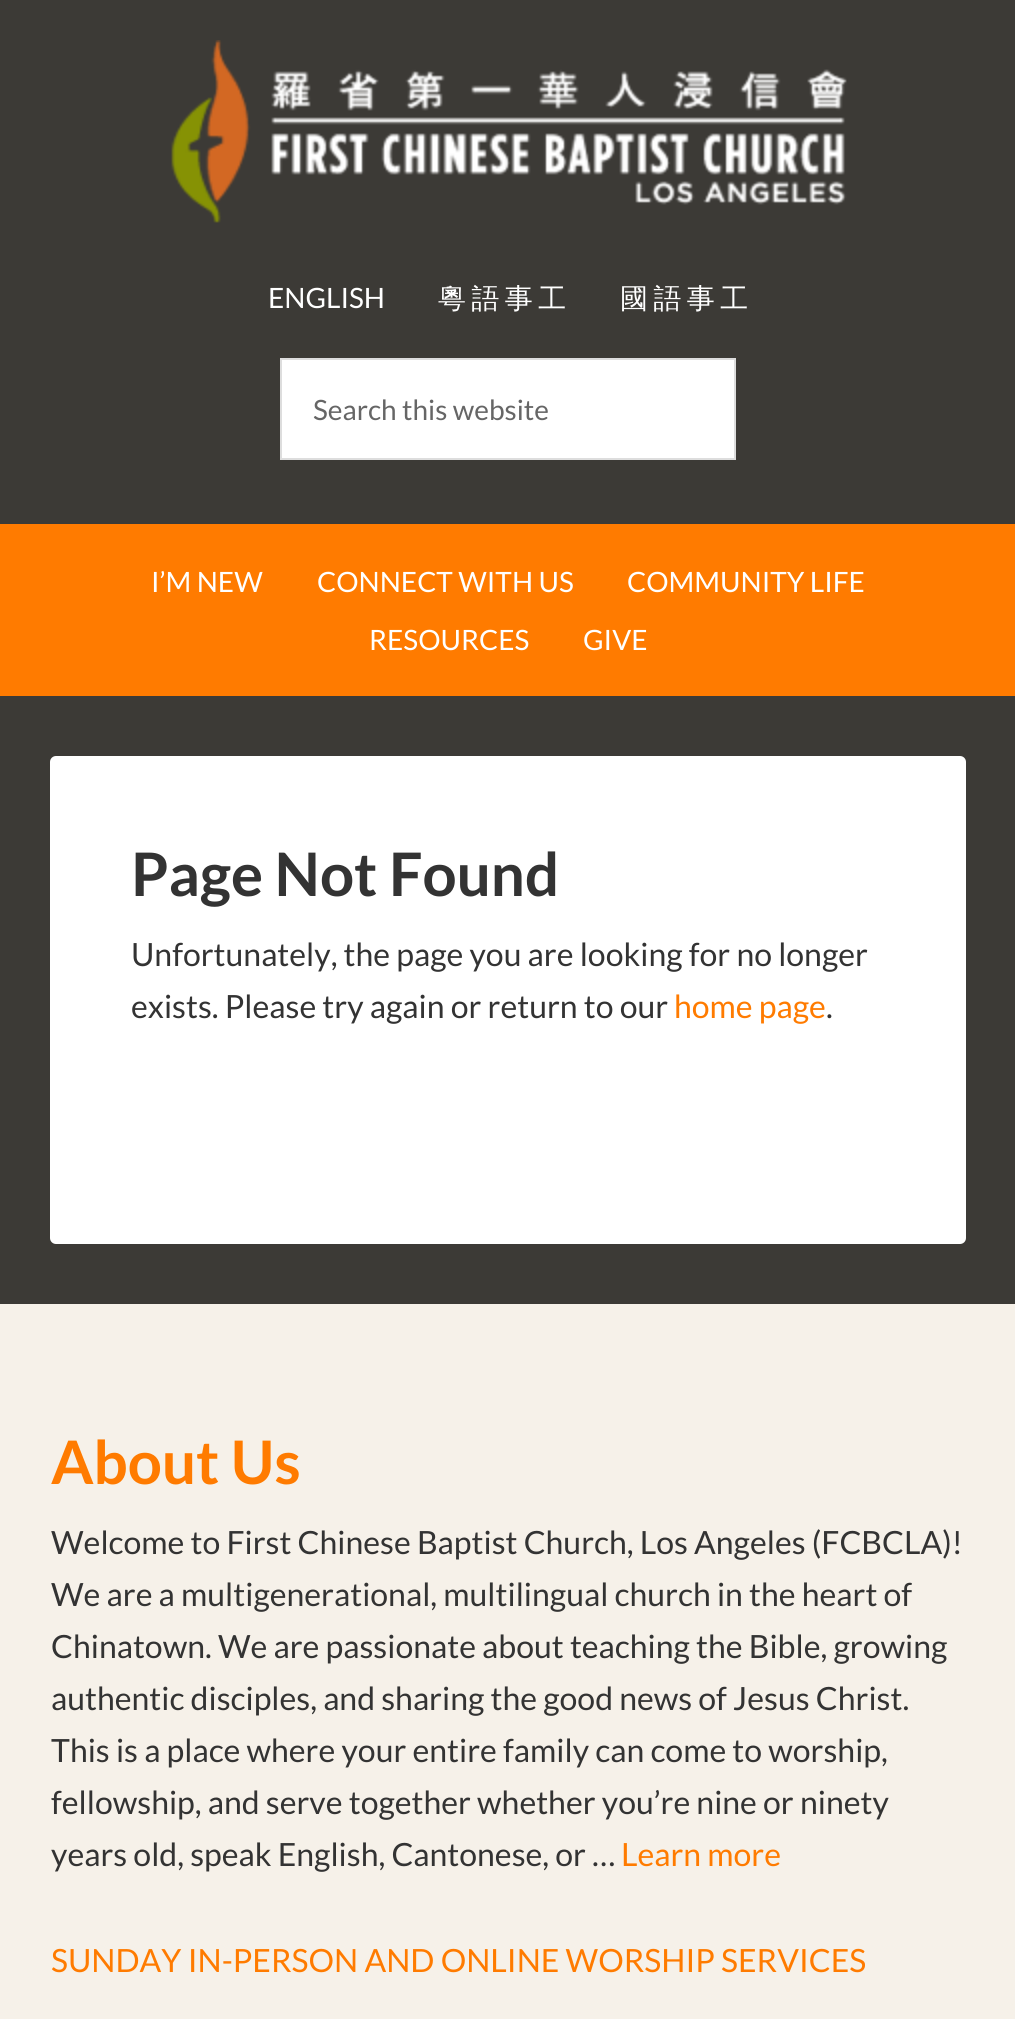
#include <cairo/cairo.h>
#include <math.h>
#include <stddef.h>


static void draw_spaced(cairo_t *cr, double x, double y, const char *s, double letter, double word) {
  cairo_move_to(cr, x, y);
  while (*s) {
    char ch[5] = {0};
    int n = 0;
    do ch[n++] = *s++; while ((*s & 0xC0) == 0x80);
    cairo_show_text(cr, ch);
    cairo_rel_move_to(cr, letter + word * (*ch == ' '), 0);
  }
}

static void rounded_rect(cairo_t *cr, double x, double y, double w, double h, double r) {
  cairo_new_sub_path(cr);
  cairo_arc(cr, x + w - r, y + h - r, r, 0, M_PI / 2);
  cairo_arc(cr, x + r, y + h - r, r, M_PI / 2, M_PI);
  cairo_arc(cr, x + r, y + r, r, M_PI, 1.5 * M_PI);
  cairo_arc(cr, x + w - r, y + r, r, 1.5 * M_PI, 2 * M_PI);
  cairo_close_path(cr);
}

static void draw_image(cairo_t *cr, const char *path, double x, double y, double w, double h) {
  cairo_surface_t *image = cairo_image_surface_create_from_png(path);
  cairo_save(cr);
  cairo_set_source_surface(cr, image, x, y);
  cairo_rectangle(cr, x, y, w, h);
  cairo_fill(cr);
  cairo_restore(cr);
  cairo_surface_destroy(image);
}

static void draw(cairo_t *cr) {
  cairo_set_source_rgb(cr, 60 / 255.0, 58 / 255.0, 54 / 255.0);
  cairo_paint(cr);
  draw_image(cr, "images/1.png", 171, 40, 676, 183);
  cairo_set_source_rgb(cr, 1, 1, 1);
  cairo_rectangle(cr, 281, 359, 454, 100);
  cairo_fill_preserve(cr);
  cairo_set_source_rgb(cr, 221 / 255.0, 221 / 255.0, 221 / 255.0);
  cairo_stroke(cr);
  cairo_set_source_rgb(cr, 1, 123 / 255.0, 0);
  cairo_rectangle(cr, 0, 524, 1015, 172);
  cairo_fill(cr);
  cairo_set_source_rgb(cr, 1, 1, 1);
  rounded_rect(cr, 50, 756, 916, 488, 6);
  cairo_fill(cr);
  cairo_set_source_rgb(cr, 246 / 255.0, 241 / 255.0, 233 / 255.0);
  cairo_rectangle(cr, 0, 1304, 1015, 715);
  cairo_fill(cr);
  cairo_select_font_face(cr, "Lato", CAIRO_FONT_SLANT_NORMAL, CAIRO_FONT_WEIGHT_NORMAL);
  cairo_set_font_size(cr, 28);
  cairo_set_source_rgb(cr, 1, 1, 1);
  cairo_move_to(cr, 268, 308);
  cairo_show_text(cr, "ENGLISH");
  cairo_select_font_face(cr, "WenQuanYi Zen Hei Medium", CAIRO_FONT_SLANT_NORMAL, CAIRO_FONT_WEIGHT_NORMAL);
  draw_spaced(cr, 438, 308, "粵 語 事 工", 0, -3);
  draw_spaced(cr, 620, 308, "國 語 事 工", 0, -3);
  cairo_select_font_face(cr, "Lato", CAIRO_FONT_SLANT_NORMAL, CAIRO_FONT_WEIGHT_NORMAL);
  cairo_set_source_rgb(cr, 102 / 255.0, 102 / 255.0, 102 / 255.0);
  cairo_move_to(cr, 313, 420);
  cairo_show_text(cr, "Search this website");
  cairo_set_source_rgb(cr, 1, 1, 1);
  cairo_move_to(cr, 151, 592);
  cairo_show_text(cr, "I’M NEW");
  cairo_move_to(cr, 317, 592);
  cairo_show_text(cr, "CONNECT WITH US");
  cairo_move_to(cr, 627, 592);
  cairo_show_text(cr, "COMMUNITY LIFE");
  cairo_move_to(cr, 369, 650);
  cairo_show_text(cr, "RESOURCES");
  cairo_move_to(cr, 583, 650);
  cairo_show_text(cr, "GIVE");
  cairo_select_font_face(cr, "Lato", CAIRO_FONT_SLANT_NORMAL, CAIRO_FONT_WEIGHT_BOLD);
  cairo_set_font_size(cr, 60);
  cairo_set_source_rgb(cr, 51 / 255.0, 51 / 255.0, 51 / 255.0);
  cairo_move_to(cr, 131, 896);
  cairo_show_text(cr, "Page Not Found");
  cairo_select_font_face(cr, "Lato", CAIRO_FONT_SLANT_NORMAL, CAIRO_FONT_WEIGHT_NORMAL);
  cairo_set_font_size(cr, 32);
  cairo_move_to(cr, 131, 966);
  cairo_show_text(cr, "Unfortunately, the page you are looking for no longer");
  cairo_move_to(cr, 131, 1018);
  cairo_show_text(cr, "exists. Please try again or return to our");
  cairo_set_source_rgb(cr, 1, 123 / 255.0, 0);
  cairo_move_to(cr, 674, 1018);
  cairo_show_text(cr, "home page");
  cairo_set_source_rgb(cr, 51 / 255.0, 51 / 255.0, 51 / 255.0);
  cairo_move_to(cr, 826, 1018);
  cairo_show_text(cr, ".");
  cairo_select_font_face(cr, "Lato", CAIRO_FONT_SLANT_NORMAL, CAIRO_FONT_WEIGHT_BOLD);
  cairo_set_font_size(cr, 60);
  cairo_set_source_rgb(cr, 1, 123 / 255.0, 0);
  cairo_move_to(cr, 51, 1484);
  cairo_show_text(cr, "About Us");
  cairo_select_font_face(cr, "Lato", CAIRO_FONT_SLANT_NORMAL, CAIRO_FONT_WEIGHT_NORMAL);
  cairo_set_font_size(cr, 32);
  cairo_set_source_rgb(cr, 51 / 255.0, 51 / 255.0, 51 / 255.0);
  cairo_move_to(cr, 51, 1554);
  cairo_show_text(cr, "Welcome to First Chinese Baptist Church, Los Angeles (FCBCLA)!");
  cairo_move_to(cr, 51, 1606);
  cairo_show_text(cr, "We are a multigenerational, multilingual church in the heart of");
  cairo_move_to(cr, 51, 1658);
  cairo_show_text(cr, "Chinatown. We are passionate about teaching the Bible, growing");
  cairo_move_to(cr, 51, 1710);
  cairo_show_text(cr, "authentic disciples, and sharing the good news of Jesus Christ.");
  cairo_move_to(cr, 51, 1762);
  cairo_show_text(cr, "This is a place where your entire family can come to worship,");
  cairo_move_to(cr, 51, 1814);
  cairo_show_text(cr, "fellowship, and serve together whether you’re nine or ninety");
  cairo_move_to(cr, 51, 1866);
  cairo_show_text(cr, "years old, speak English, Cantonese, or …");
  cairo_set_source_rgb(cr, 1, 123 / 255.0, 0);
  cairo_move_to(cr, 621, 1866);
  cairo_show_text(cr, "Learn more");
  cairo_move_to(cr, 51, 1972);
  cairo_show_text(cr, "SUNDAY IN-PERSON AND ONLINE WORSHIP SERVICES");
}

int main(void) {
  cairo_surface_t *surface = cairo_image_surface_create(CAIRO_FORMAT_RGB24, 1015, 2019);
  cairo_t *cr = cairo_create(surface);
  cairo_font_options_t *options = cairo_font_options_create();
  cairo_font_options_set_hint_metrics(options, CAIRO_HINT_METRICS_OFF);
  cairo_font_options_set_hint_style(options, CAIRO_HINT_STYLE_NONE);
  cairo_set_font_options(cr, options);
  cairo_set_miter_limit(cr, 4);
  draw(cr);
  cairo_surface_write_to_png(surface, "out.png");
  cairo_font_options_destroy(options);
  cairo_destroy(cr);
  cairo_surface_destroy(surface);
  return 0;
}
